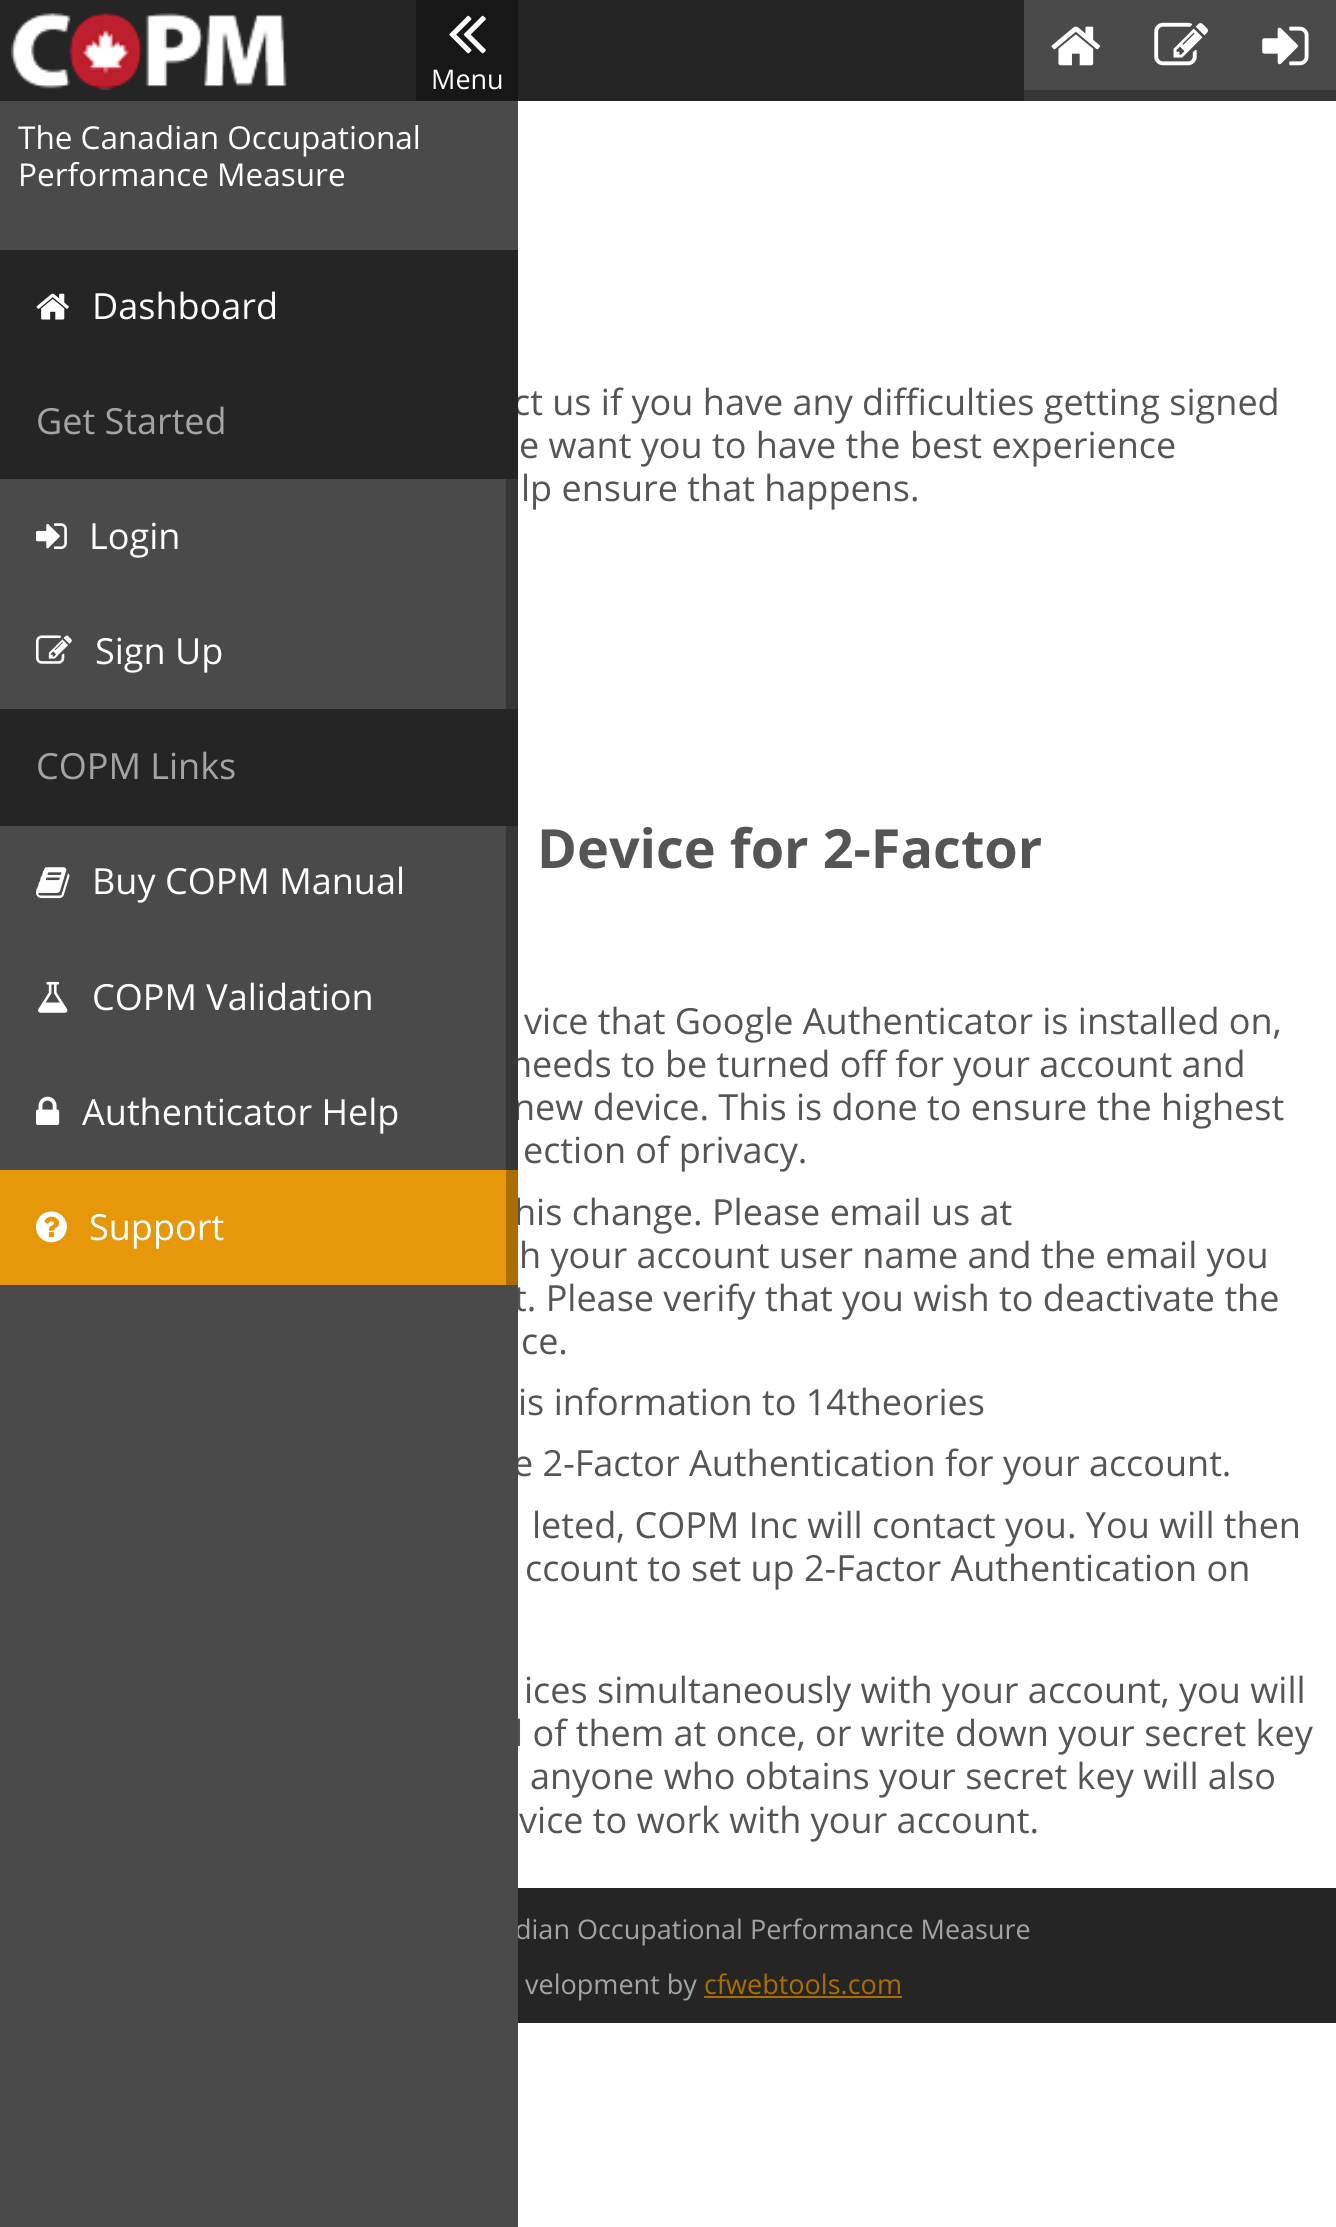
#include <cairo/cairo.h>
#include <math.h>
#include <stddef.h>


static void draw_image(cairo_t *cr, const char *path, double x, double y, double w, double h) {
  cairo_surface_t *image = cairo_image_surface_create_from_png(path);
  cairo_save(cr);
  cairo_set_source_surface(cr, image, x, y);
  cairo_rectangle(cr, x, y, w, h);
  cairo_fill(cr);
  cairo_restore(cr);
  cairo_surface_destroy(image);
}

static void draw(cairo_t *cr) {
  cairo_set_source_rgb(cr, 1, 1, 1);
  cairo_paint(cr);
  cairo_set_source_rgb(cr, 37 / 255.0, 37 / 255.0, 37 / 255.0);
  cairo_rectangle(cr, 0, 0, 416, 101);
  cairo_fill(cr);
  draw_image(cr, "images/1.png", 11, 13, 276, 77);
  cairo_set_source_rgb(cr, 23 / 255.0, 23 / 255.0, 23 / 255.0);
  cairo_rectangle(cr, 416, 0, 102, 101);
  cairo_fill(cr);
  draw_image(cr, "images/2.png", 449, 15, 37, 39);
  cairo_set_source_rgb(cr, 37 / 255.0, 37 / 255.0, 37 / 255.0);
  cairo_rectangle(cr, 518, 0, 506, 101);
  cairo_fill(cr);
  cairo_set_source_rgb(cr, 74 / 255.0, 74 / 255.0, 74 / 255.0);
  cairo_rectangle(cr, 1024, 0, 312, 90);
  cairo_fill(cr);
  cairo_set_source_rgb(cr, 54 / 255.0, 54 / 255.0, 54 / 255.0);
  cairo_rectangle(cr, 1024, 90, 312, 11);
  cairo_fill(cr);
  draw_image(cr, "images/3.png", 1051, 26, 50, 40);
  draw_image(cr, "images/4.png", 1154, 22, 54, 44);
  draw_image(cr, "images/5.png", 1262, 26, 47, 40);
  cairo_set_source_rgb(cr, 37 / 255.0, 37 / 255.0, 37 / 255.0);
  cairo_rectangle(cr, 518, 1888, 818, 135);
  cairo_fill(cr);
  cairo_set_source_rgb(cr, 172 / 255.0, 109 / 255.0, 0);
  cairo_rectangle(cr, 704, 1996, 198, 2);
  cairo_fill(cr);
  cairo_select_font_face(cr, "Open Sans", CAIRO_FONT_SLANT_NORMAL, CAIRO_FONT_WEIGHT_NORMAL);
  cairo_set_font_size(cr, 27);
  cairo_set_source_rgb(cr, 1, 1, 1);
  cairo_move_to(cr, 431, 89);
  cairo_show_text(cr, "Menu");
  cairo_set_font_size(cr, 36);
  cairo_set_source_rgb(cr, 85 / 255.0, 85 / 255.0, 85 / 255.0);
  cairo_move_to(cr, 513, 415);
  cairo_show_text(cr, "ct us if you have any difficulties getting signed");
  cairo_move_to(cr, 519, 458);
  cairo_show_text(cr, "e want you to have the best experience");
  cairo_move_to(cr, 521, 501);
  cairo_show_text(cr, "lp ensure that happens.");
  cairo_select_font_face(cr, "Open Sans", CAIRO_FONT_SLANT_NORMAL, CAIRO_FONT_WEIGHT_BOLD);
  cairo_set_font_size(cr, 54);
  cairo_move_to(cr, 537, 868);
  cairo_show_text(cr, "Device for 2-Factor");
  cairo_select_font_face(cr, "Open Sans", CAIRO_FONT_SLANT_NORMAL, CAIRO_FONT_WEIGHT_NORMAL);
  cairo_set_font_size(cr, 36);
  cairo_move_to(cr, 524, 1034);
  cairo_show_text(cr, "vice that Google Authenticator is installed on,");
  cairo_move_to(cr, 510, 1077);
  cairo_show_text(cr, "needs to be turned off for your account and");
  cairo_move_to(cr, 513, 1120);
  cairo_show_text(cr, "new device. This is done to ensure the highest");
  cairo_move_to(cr, 523, 1163);
  cairo_show_text(cr, "ection of privacy.");
  cairo_move_to(cr, 514, 1225);
  cairo_show_text(cr, "his change. Please email us at");
  cairo_move_to(cr, 519, 1268);
  cairo_show_text(cr, "h your account user name and the email you");
  cairo_move_to(cr, 514, 1311);
  cairo_show_text(cr, "t. Please verify that you wish to deactivate the");
  cairo_move_to(cr, 521, 1354);
  cairo_show_text(cr, "ce.");
  cairo_move_to(cr, 518, 1415);
  cairo_show_text(cr, "is information to 14theories");
  cairo_move_to(cr, 513, 1476);
  cairo_show_text(cr, "e 2-Factor Authentication for your account.");
  cairo_move_to(cr, 532, 1538);
  cairo_show_text(cr, "leted, COPM Inc will contact you. You will then");
  cairo_move_to(cr, 525, 1581);
  cairo_show_text(cr, "ccount to set up 2-Factor Authentication on");
  cairo_move_to(cr, 524, 1703);
  cairo_show_text(cr, "ices simultaneously with your account, you will");
  cairo_move_to(cr, 514, 1746);
  cairo_show_text(cr, "l of them at once, or write down your secret key");
  cairo_move_to(cr, 530, 1789);
  cairo_show_text(cr, "anyone who obtains your secret key will also");
  cairo_move_to(cr, 519, 1833);
  cairo_show_text(cr, "vice to work with your account.");
  cairo_set_font_size(cr, 27);
  cairo_set_source_rgb(cr, 164 / 255.0, 164 / 255.0, 164 / 255.0);
  cairo_move_to(cr, 515, 1939);
  cairo_show_text(cr, "dian Occupational Performance Measure");
  cairo_set_source_rgb(cr, 74 / 255.0, 74 / 255.0, 74 / 255.0);
  cairo_rectangle(cr, 0, 101, 518, 2126);
  cairo_fill(cr);
  cairo_set_source_rgb(cr, 231 / 255.0, 151 / 255.0, 10 / 255.0);
  cairo_rectangle(cr, 0, 1170, 506, 115);
  cairo_fill(cr);
  cairo_set_font_size(cr, 36);
  cairo_set_source_rgb(cr, 1, 1, 1);
  cairo_move_to(cr, 89, 1240);
  cairo_show_text(cr, "Support");
  draw_image(cr, "images/12.png", 36, 1211, 31, 32);
  cairo_move_to(cr, 82, 1125);
  cairo_show_text(cr, "Authenticator Help");
  draw_image(cr, "images/11.png", 36, 1096, 24, 29);
  cairo_move_to(cr, 92, 1010);
  cairo_show_text(cr, "COPM Validation");
  draw_image(cr, "images/10.png", 38, 981, 30, 32);
  cairo_move_to(cr, 92, 894);
  cairo_show_text(cr, "Buy COPM Manual");
  draw_image(cr, "images/9.png", 36, 867, 34, 32);
  cairo_set_source_rgb(cr, 37 / 255.0, 37 / 255.0, 37 / 255.0);
  cairo_rectangle(cr, 0, 709, 518, 117);
  cairo_fill(cr);
  cairo_set_source_rgb(cr, 164 / 255.0, 164 / 255.0, 164 / 255.0);
  cairo_move_to(cr, 36, 779);
  cairo_show_text(cr, "COPM Links");
  cairo_set_source_rgb(cr, 1, 1, 1);
  cairo_move_to(cr, 95, 664);
  cairo_show_text(cr, "Sign Up");
  draw_image(cr, "images/8.png", 36, 635, 36, 29);
  cairo_move_to(cr, 89, 549);
  cairo_show_text(cr, "Login");
  draw_image(cr, "images/7.png", 36, 523, 31, 26);
  cairo_set_source_rgb(cr, 37 / 255.0, 37 / 255.0, 37 / 255.0);
  cairo_rectangle(cr, 0, 250, 518, 229);
  cairo_fill(cr);
  cairo_set_source_rgb(cr, 164 / 255.0, 164 / 255.0, 164 / 255.0);
  cairo_move_to(cr, 36, 434);
  cairo_show_text(cr, "Get Started");
  cairo_set_source_rgb(cr, 1, 1, 1);
  cairo_move_to(cr, 92, 319);
  cairo_show_text(cr, "Dashboard");
  draw_image(cr, "images/6.png", 36, 293, 33, 27);
  cairo_set_font_size(cr, 31.5);
  cairo_move_to(cr, 18, 186);
  cairo_show_text(cr, "Performance Measure");
  cairo_move_to(cr, 18, 149);
  cairo_show_text(cr, "The Canadian Occupational");
  cairo_set_source_rgb(cr, 172 / 255.0, 109 / 255.0, 0);
  cairo_rectangle(cr, 506, 1170, 12, 115);
  cairo_fill(cr);
  cairo_set_source_rgb(cr, 54 / 255.0, 54 / 255.0, 54 / 255.0);
  cairo_rectangle(cr, 506, 826, 12, 344);
  cairo_fill(cr);
  cairo_rectangle(cr, 506, 479, 12, 230);
  cairo_fill(cr);
  cairo_set_font_size(cr, 27);
  cairo_set_source_rgb(cr, 164 / 255.0, 164 / 255.0, 164 / 255.0);
  cairo_move_to(cr, 525, 1994);
  cairo_show_text(cr, "velopment by");
  cairo_set_source_rgb(cr, 172 / 255.0, 109 / 255.0, 0);
  cairo_move_to(cr, 704, 1994);
  cairo_show_text(cr, "cfwebtools.com");
}

int main(void) {
  cairo_surface_t *surface = cairo_image_surface_create(CAIRO_FORMAT_RGB24, 1336, 2227);
  cairo_t *cr = cairo_create(surface);
  cairo_font_options_t *options = cairo_font_options_create();
  cairo_font_options_set_hint_metrics(options, CAIRO_HINT_METRICS_OFF);
  cairo_font_options_set_hint_style(options, CAIRO_HINT_STYLE_NONE);
  cairo_set_font_options(cr, options);
  cairo_set_miter_limit(cr, 4);
  draw(cr);
  cairo_surface_write_to_png(surface, "out.png");
  cairo_font_options_destroy(options);
  cairo_destroy(cr);
  cairo_surface_destroy(surface);
  return 0;
}
